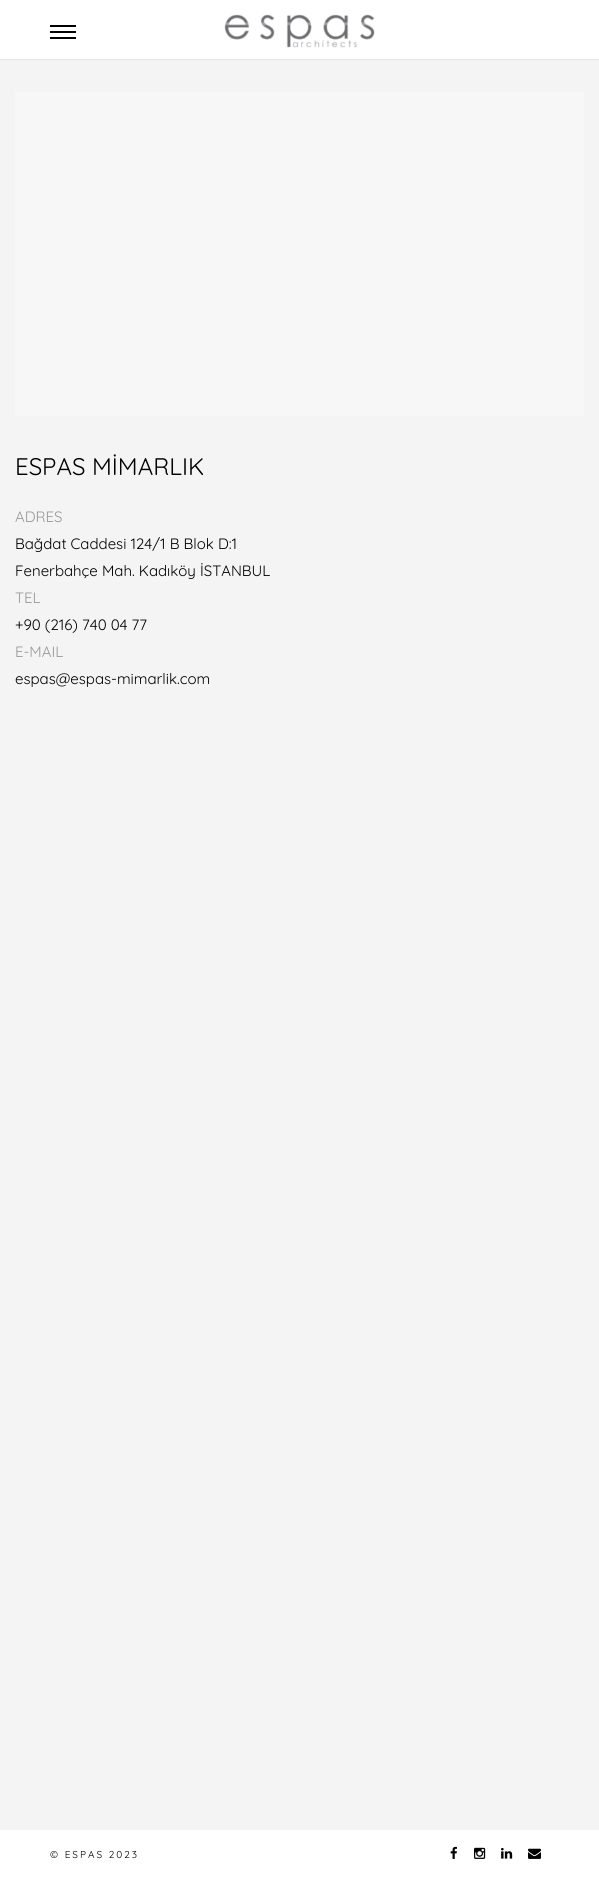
#include <cairo/cairo.h>
#include <math.h>
#include <stddef.h>


static void draw_spaced(cairo_t *cr, double x, double y, const char *s, double letter, double word) {
  cairo_move_to(cr, x, y);
  while (*s) {
    char ch[5] = {0};
    int n = 0;
    do ch[n++] = *s++; while ((*s & 0xC0) == 0x80);
    cairo_show_text(cr, ch);
    cairo_rel_move_to(cr, letter + word * (*ch == ' '), 0);
  }
}

static void draw_image(cairo_t *cr, const char *path, double x, double y, double w, double h) {
  cairo_surface_t *image = cairo_image_surface_create_from_png(path);
  cairo_save(cr);
  cairo_set_source_surface(cr, image, x, y);
  cairo_rectangle(cr, x, y, w, h);
  cairo_fill(cr);
  cairo_restore(cr);
  cairo_surface_destroy(image);
}

static void draw(cairo_t *cr) {
  cairo_set_source_rgb(cr, 244 / 255.0, 244 / 255.0, 244 / 255.0);
  cairo_paint(cr);
  cairo_set_source_rgb(cr, 1, 1, 1);
  cairo_rectangle(cr, 0, 0, 599, 59);
  cairo_fill(cr);
  cairo_set_source_rgb(cr, 230 / 255.0, 230 / 255.0, 230 / 255.0);
  cairo_rectangle(cr, 0, 59, 599, 1);
  cairo_fill(cr);
  cairo_set_source_rgb(cr, 0, 0, 0);
  cairo_rectangle(cr, 50, 25, 26, 2);
  cairo_fill(cr);
  cairo_rectangle(cr, 50, 31, 26, 2);
  cairo_fill(cr);
  cairo_rectangle(cr, 50, 37, 26, 2);
  cairo_fill(cr);
  draw_image(cr, "images/1.png", 224, 14, 151, 34);
  cairo_set_source_rgb(cr, 247 / 255.0, 247 / 255.0, 247 / 255.0);
  cairo_rectangle(cr, 15, 92, 569, 324);
  cairo_fill(cr);
  cairo_set_source_rgb(cr, 1, 1, 1);
  cairo_rectangle(cr, 0, 1830, 599, 50);
  cairo_fill(cr);
  draw_image(cr, "images/2.png", 450, 1846, 7, 13);
  draw_image(cr, "images/3.png", 474, 1847, 12, 12);
  draw_image(cr, "images/4.png", 501, 1847, 12, 12);
  draw_image(cr, "images/5.png", 528, 1848, 13, 11);
  cairo_select_font_face(cr, "Quicksand Light", CAIRO_FONT_SLANT_NORMAL, CAIRO_FONT_WEIGHT_NORMAL);
  cairo_set_font_size(cr, 24);
  cairo_set_source_rgb(cr, 0, 0, 0);
  cairo_move_to(cr, 15, 475);
  cairo_show_text(cr, "ESPAS MİMARLIK");
  cairo_set_font_size(cr, 15);
  cairo_set_source_rgb(cr, 153 / 255.0, 153 / 255.0, 153 / 255.0);
  cairo_move_to(cr, 15, 522);
  cairo_show_text(cr, "ADRES");
  cairo_set_source_rgb(cr, 0, 0, 0);
  cairo_move_to(cr, 15, 549);
  cairo_show_text(cr, "Bağdat Caddesi 124/1 B Blok D:1");
  cairo_move_to(cr, 15, 576);
  cairo_show_text(cr, "Fenerbahçe Mah. Kadıköy İSTANBUL");
  cairo_set_source_rgb(cr, 153 / 255.0, 153 / 255.0, 153 / 255.0);
  cairo_move_to(cr, 15, 603);
  cairo_show_text(cr, "TEL");
  cairo_set_source_rgb(cr, 0, 0, 0);
  cairo_move_to(cr, 15, 630);
  cairo_show_text(cr, "+90 (216) 740 04 77");
  cairo_set_source_rgb(cr, 153 / 255.0, 153 / 255.0, 153 / 255.0);
  cairo_move_to(cr, 15, 657);
  cairo_show_text(cr, "E-MAIL");
  cairo_set_source_rgb(cr, 0, 0, 0);
  cairo_move_to(cr, 15, 684);
  cairo_show_text(cr, "espas@espas-mimarlik.com");
  cairo_set_font_size(cr, 10);
  draw_spaced(cr, 50, 1858, "© ESPAS 2023", 2, 0);
}

int main(void) {
  cairo_surface_t *surface = cairo_image_surface_create(CAIRO_FORMAT_RGB24, 599, 1880);
  cairo_t *cr = cairo_create(surface);
  cairo_font_options_t *options = cairo_font_options_create();
  cairo_font_options_set_hint_metrics(options, CAIRO_HINT_METRICS_OFF);
  cairo_font_options_set_hint_style(options, CAIRO_HINT_STYLE_NONE);
  cairo_set_font_options(cr, options);
  cairo_set_miter_limit(cr, 4);
  draw(cr);
  cairo_surface_write_to_png(surface, "out.png");
  cairo_font_options_destroy(options);
  cairo_destroy(cr);
  cairo_surface_destroy(surface);
  return 0;
}
